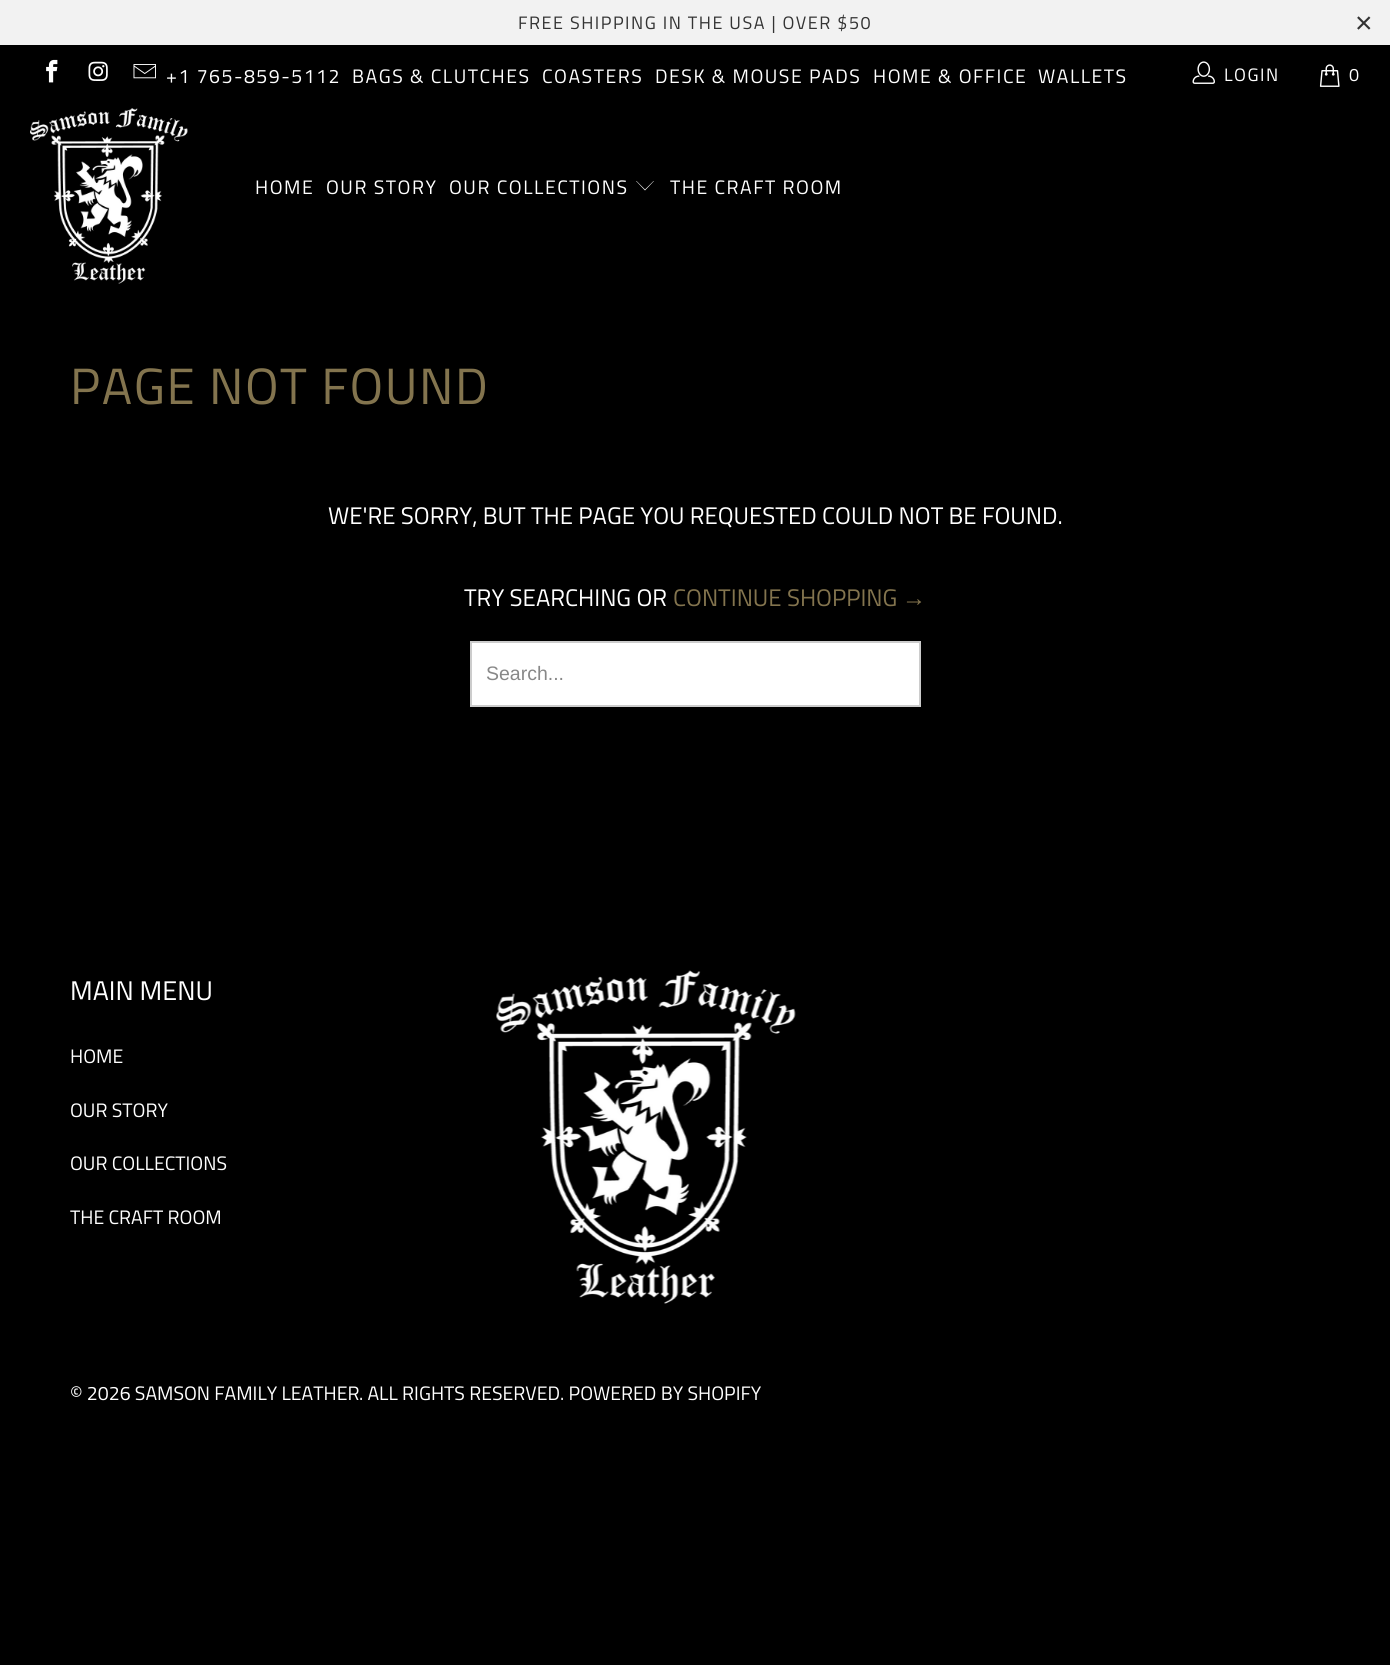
#include <cairo/cairo.h>
#include <math.h>
#include <stddef.h>


static void draw_spaced(cairo_t *cr, double x, double y, const char *s, double letter, double word) {
  cairo_move_to(cr, x, y);
  while (*s) {
    char ch[5] = {0};
    int n = 0;
    do ch[n++] = *s++; while ((*s & 0xC0) == 0x80);
    cairo_show_text(cr, ch);
    cairo_rel_move_to(cr, letter + word * (*ch == ' '), 0);
  }
}

static void draw_image(cairo_t *cr, const char *path, double x, double y, double w, double h) {
  cairo_surface_t *image = cairo_image_surface_create_from_png(path);
  cairo_save(cr);
  cairo_set_source_surface(cr, image, x, y);
  cairo_rectangle(cr, x, y, w, h);
  cairo_fill(cr);
  cairo_restore(cr);
  cairo_surface_destroy(image);
}

static void draw(cairo_t *cr) {
  cairo_set_source_rgb(cr, 0, 0, 0);
  cairo_paint(cr);
  cairo_set_source_rgb(cr, 242 / 255.0, 242 / 255.0, 242 / 255.0);
  cairo_rectangle(cr, 0, 0, 1390, 45);
  cairo_fill(cr);
  draw_image(cr, "images/1.png", 46, 59, 12, 24);
  draw_image(cr, "images/2.png", 88, 61, 20, 20);
  draw_image(cr, "images/3.png", 133, 64, 23, 15);
  draw_image(cr, "images/4.png", 1192, 61, 23, 23);
  draw_image(cr, "images/5.png", 1319, 64, 21, 23);
  draw_image(cr, "images/6.png", 30, 108, 158, 176);
  cairo_set_source_rgb(cr, 1, 1, 1);
  cairo_new_path(cr);
  cairo_move_to(cr, 645, 190.5);
  cairo_line_to(cr, 636, 181);
  cairo_line_to(cr, 636.5, 181);
  cairo_line_to(cr, 645, 189.5);
  cairo_line_to(cr, 653.5, 181);
  cairo_line_to(cr, 654, 181);
  cairo_close_path(cr);
  cairo_fill(cr);
  cairo_rectangle(cr, 471, 642, 449, 64);
  cairo_fill_preserve(cr);
  cairo_set_source_rgb(cr, 204 / 255.0, 204 / 255.0, 204 / 255.0);
  cairo_stroke(cr);
  draw_image(cr, "images/7.png", 496, 970, 300, 334);
  cairo_select_font_face(cr, "Titillium Web", CAIRO_FONT_SLANT_NORMAL, CAIRO_FONT_WEIGHT_NORMAL);
  cairo_set_font_size(cr, 18);
  cairo_set_source_rgb(cr, 51 / 255.0, 51 / 255.0, 51 / 255.0);
  draw_spaced(cr, 518, 29, "FREE SHIPPING IN THE USA | OVER $50", 1.5, 0);
  cairo_select_font_face(cr, "Liberation Sans", CAIRO_FONT_SLANT_NORMAL, CAIRO_FONT_WEIGHT_NORMAL);
  cairo_set_font_size(cr, 30);
  draw_spaced(cr, 1355, 33, "×", 1.5, 0);
  cairo_select_font_face(cr, "Titillium Web", CAIRO_FONT_SLANT_NORMAL, CAIRO_FONT_WEIGHT_NORMAL);
  cairo_set_font_size(cr, 19.5);
  cairo_set_source_rgb(cr, 1, 1, 1);
  draw_spaced(cr, 166, 83, "+1 765-859-5112", 1.5, 0);
  draw_spaced(cr, 352, 83, "BAGS & CLUTCHES", 1.5, 0);
  draw_spaced(cr, 542, 83, "COASTERS", 1.5, 0);
  draw_spaced(cr, 655, 83, "DESK & MOUSE PADS", 1.5, 0);
  draw_spaced(cr, 873, 83, "HOME & OFFICE", 1.5, 0);
  draw_spaced(cr, 1038, 83, "WALLETS", 1.5, 0);
  cairo_set_font_size(cr, 18);
  draw_spaced(cr, 1224, 81, "LOGIN", 1.5, 0);
  draw_spaced(cr, 1349, 81, "0", 1.5, 0);
  cairo_set_font_size(cr, 19.5);
  draw_spaced(cr, 255, 194, "HOME", 1.5, 0);
  draw_spaced(cr, 326, 194, "OUR STORY", 1.5, 0);
  draw_spaced(cr, 449, 194, "OUR COLLECTIONS", 1.5, 0);
  draw_spaced(cr, 670, 194, "THE CRAFT ROOM", 1.5, 0);
  cairo_set_font_size(cr, 51);
  cairo_set_source_rgb(cr, 131 / 255.0, 116 / 255.0, 78 / 255.0);
  draw_spaced(cr, 70, 404, "PAGE NOT FOUND", 1.5, 0);
  cairo_set_font_size(cr, 24);
  cairo_set_source_rgb(cr, 1, 1, 1);
  cairo_move_to(cr, 328, 524);
  cairo_show_text(cr, "WE'RE SORRY, BUT THE PAGE YOU REQUESTED COULD NOT BE FOUND.");
  cairo_move_to(cr, 464, 606);
  cairo_show_text(cr, "TRY SEARCHING OR");
  cairo_set_source_rgb(cr, 131 / 255.0, 116 / 255.0, 78 / 255.0);
  cairo_move_to(cr, 673, 606);
  cairo_show_text(cr, "CONTINUE SHOPPING");
  cairo_select_font_face(cr, "Liberation Sans", CAIRO_FONT_SLANT_NORMAL, CAIRO_FONT_WEIGHT_NORMAL);
  cairo_move_to(cr, 902, 606);
  cairo_show_text(cr, "→");
  cairo_set_font_size(cr, 19.5);
  cairo_set_source_rgb(cr, 136 / 255.0, 136 / 255.0, 136 / 255.0);
  cairo_move_to(cr, 486, 680);
  cairo_show_text(cr, "Search...");
  cairo_select_font_face(cr, "Titillium Web", CAIRO_FONT_SLANT_NORMAL, CAIRO_FONT_WEIGHT_NORMAL);
  cairo_set_font_size(cr, 27);
  cairo_set_source_rgb(cr, 1, 1, 1);
  cairo_move_to(cr, 70, 1000);
  cairo_show_text(cr, "MAIN MENU");
  cairo_set_font_size(cr, 19.5);
  cairo_move_to(cr, 70, 1063);
  cairo_show_text(cr, "HOME");
  cairo_move_to(cr, 70, 1117);
  cairo_show_text(cr, "OUR STORY");
  cairo_move_to(cr, 70, 1170);
  cairo_show_text(cr, "OUR COLLECTIONS");
  cairo_move_to(cr, 70, 1224);
  cairo_show_text(cr, "THE CRAFT ROOM");
  cairo_move_to(cr, 70, 1400);
  cairo_show_text(cr, "© 2026 SAMSON FAMILY LEATHER");
  cairo_move_to(cr, 359, 1400);
  cairo_show_text(cr, ". ALL RIGHTS RESERVED. POWERED BY SHOPIFY");
}

int main(void) {
  cairo_surface_t *surface = cairo_image_surface_create(CAIRO_FORMAT_RGB24, 1390, 1665);
  cairo_t *cr = cairo_create(surface);
  cairo_font_options_t *options = cairo_font_options_create();
  cairo_font_options_set_hint_metrics(options, CAIRO_HINT_METRICS_OFF);
  cairo_font_options_set_hint_style(options, CAIRO_HINT_STYLE_NONE);
  cairo_set_font_options(cr, options);
  cairo_set_miter_limit(cr, 4);
  draw(cr);
  cairo_surface_write_to_png(surface, "out.png");
  cairo_font_options_destroy(options);
  cairo_destroy(cr);
  cairo_surface_destroy(surface);
  return 0;
}
